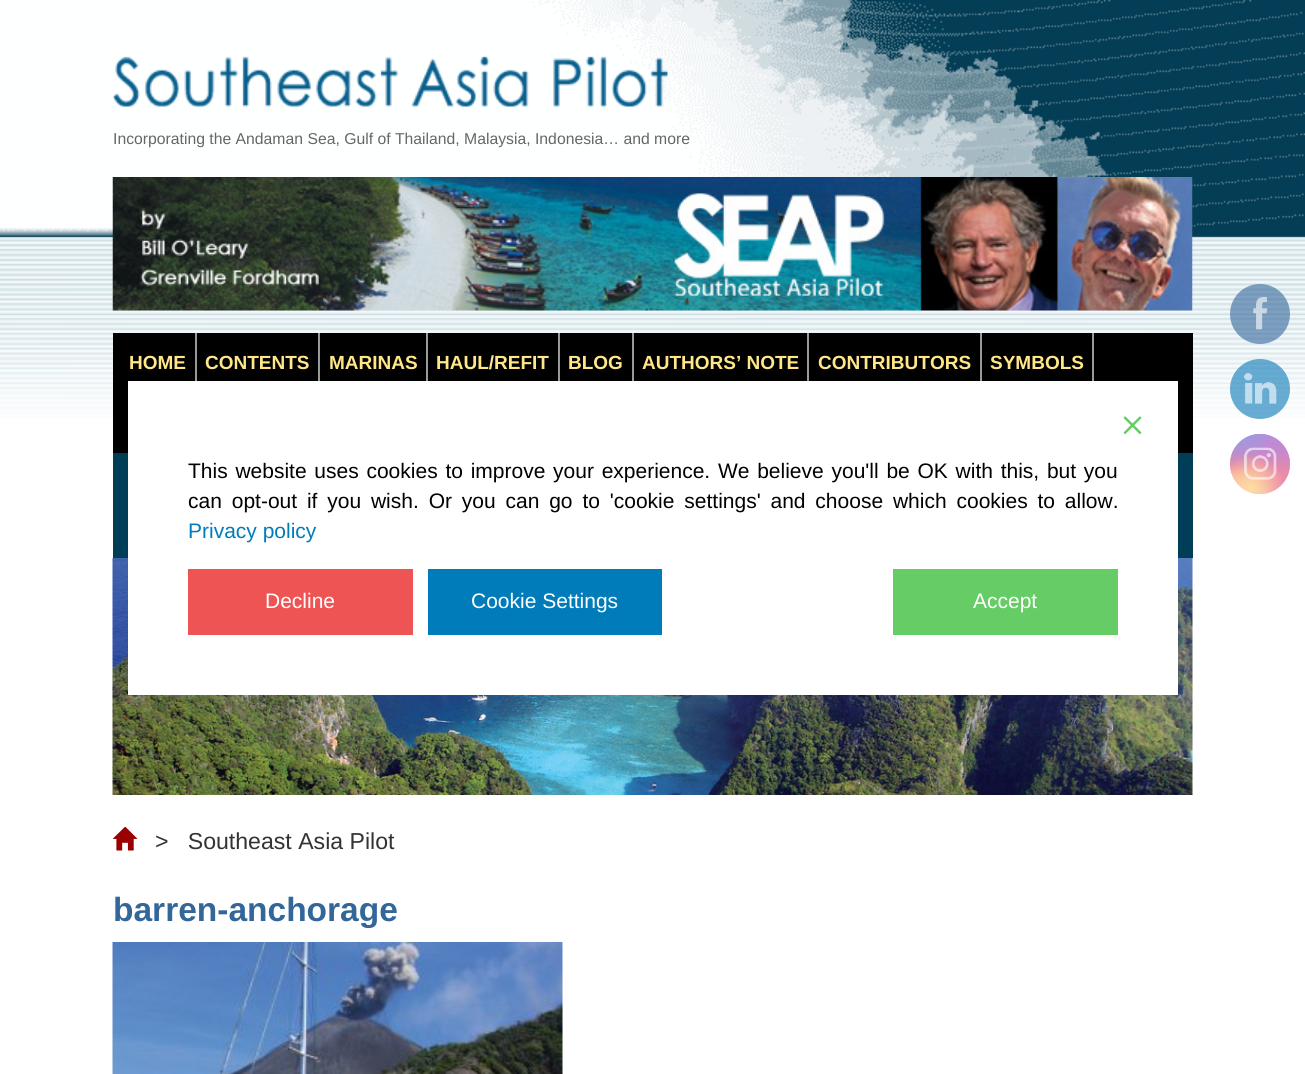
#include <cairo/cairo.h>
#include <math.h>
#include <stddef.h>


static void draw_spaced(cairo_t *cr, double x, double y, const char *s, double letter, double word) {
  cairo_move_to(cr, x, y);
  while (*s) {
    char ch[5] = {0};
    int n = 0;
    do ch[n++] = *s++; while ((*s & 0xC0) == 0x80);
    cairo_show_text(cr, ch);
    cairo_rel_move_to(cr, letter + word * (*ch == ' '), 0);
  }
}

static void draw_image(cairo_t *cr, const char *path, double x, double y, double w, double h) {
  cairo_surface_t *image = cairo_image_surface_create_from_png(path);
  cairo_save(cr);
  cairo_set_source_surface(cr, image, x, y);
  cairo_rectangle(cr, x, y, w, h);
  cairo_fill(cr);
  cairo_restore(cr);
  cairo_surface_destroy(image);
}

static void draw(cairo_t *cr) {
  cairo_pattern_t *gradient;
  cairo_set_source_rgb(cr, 1, 1, 1);
  cairo_paint(cr);
  draw_image(cr, "images/1.png", 0, 0, 1305, 418);
  draw_image(cr, "images/2.png", 112, 56, 556, 51);
  draw_image(cr, "images/3.png", 112, 177, 1081, 134);
  cairo_set_source_rgb(cr, 0, 0, 0);
  cairo_rectangle(cr, 113, 333, 1080, 120);
  cairo_fill(cr);
  cairo_set_source_rgb(cr, 153 / 255.0, 153 / 255.0, 153 / 255.0);
  cairo_rectangle(cr, 195, 333, 2, 48);
  cairo_fill(cr);
  cairo_rectangle(cr, 318, 333, 2, 48);
  cairo_fill(cr);
  cairo_rectangle(cr, 426, 333, 2, 48);
  cairo_fill(cr);
  cairo_rectangle(cr, 558, 333, 2, 48);
  cairo_fill(cr);
  cairo_rectangle(cr, 632, 333, 2, 48);
  cairo_fill(cr);
  cairo_rectangle(cr, 807, 333, 2, 48);
  cairo_fill(cr);
  cairo_rectangle(cr, 980, 333, 2, 48);
  cairo_fill(cr);
  cairo_rectangle(cr, 1092, 333, 2, 48);
  cairo_fill(cr);
  cairo_set_source_rgb(cr, 0, 62 / 255.0, 87 / 255.0);
  cairo_rectangle(cr, 113, 453, 1080, 105);
  cairo_fill(cr);
  draw_image(cr, "images/4.png", 112, 558, 1081, 237);
  cairo_set_source_rgba(cr, 51 / 255.0, 102 / 255.0, 153 / 255.0, 0.6);
  cairo_arc(cr, 1260, 314, 30, 0, 2 * M_PI);
  cairo_fill(cr);
  draw_image(cr, "images/5.png", 1253, 297, 15, 33);
  cairo_set_source_rgba(cr, 8 / 255.0, 119 / 255.0, 181 / 255.0, 0.6);
  cairo_arc(cr, 1260, 389, 30, 0, 2 * M_PI);
  cairo_fill(cr);
  draw_image(cr, "images/6.png", 1244, 372, 33, 32);
  gradient = cairo_pattern_create_linear(1260, 434, 1260, 494);
  cairo_pattern_add_color_stop_rgba(gradient, 0, 163 / 255.0, 155 / 255.0, 223 / 255.0, 1);
  cairo_pattern_add_color_stop_rgba(gradient, 0.3, 215 / 255.0, 131 / 255.0, 188 / 255.0, 1);
  cairo_pattern_add_color_stop_rgba(gradient, 0.5, 238 / 255.0, 140 / 255.0, 159 / 255.0, 1);
  cairo_pattern_add_color_stop_rgba(gradient, 0.7, 250 / 255.0, 173 / 255.0, 136 / 255.0, 1);
  cairo_pattern_add_color_stop_rgba(gradient, 1, 254 / 255.0, 221 / 255.0, 167 / 255.0, 1);
  cairo_set_source(cr, gradient);
  cairo_pattern_destroy(gradient);
  cairo_arc(cr, 1260, 464, 30, 0, 2 * M_PI);
  cairo_fill(cr);
  gradient = cairo_pattern_create_radial(1290, 494, 0, 1290, 494, 85);
  cairo_pattern_add_color_stop_rgba(gradient, 0, 232 / 255.0, 131 / 255.0, 175 / 255.0, 1);
  cairo_pattern_add_color_stop_rgba(gradient, 1, 232 / 255.0, 131 / 255.0, 175 / 255.0, 0);
  cairo_set_source(cr, gradient);
  cairo_pattern_destroy(gradient);
  cairo_arc(cr, 1260, 464, 30, 0, 2 * M_PI);
  cairo_fill(cr);
  gradient = cairo_pattern_create_radial(0, 0, 0, 0, 0, 1);
  cairo_pattern_set_matrix(gradient, &(cairo_matrix_t){1.0 / 51, 0, 0, 1.0 / 102, -1.0 * 1266 / 51, -1.0 * 422 / 102});
  cairo_pattern_add_color_stop_rgba(gradient, 0, 184 / 255.0, 139 / 255.0, 218 / 255.0, 1);
  cairo_pattern_add_color_stop_rgba(gradient, 0.5, 184 / 255.0, 139 / 255.0, 218 / 255.0, 0);
  cairo_set_source(cr, gradient);
  cairo_pattern_destroy(gradient);
  cairo_arc(cr, 1260, 464, 30, 0, 2 * M_PI);
  cairo_fill(cr);
  gradient = cairo_pattern_create_radial(1290, 434, 0, 1290, 434, 85);
  cairo_pattern_add_color_stop_rgba(gradient, 0, 184 / 255.0, 139 / 255.0, 218 / 255.0, 1);
  cairo_pattern_add_color_stop_rgba(gradient, 0.5, 184 / 255.0, 139 / 255.0, 218 / 255.0, 0);
  cairo_set_source(cr, gradient);
  cairo_pattern_destroy(gradient);
  cairo_arc(cr, 1260, 464, 30, 0, 2 * M_PI);
  cairo_fill(cr);
  gradient = cairo_pattern_create_radial(0, 0, 0, 0, 0, 1);
  cairo_pattern_set_matrix(gradient, &(cairo_matrix_t){1.0 / 68, 0, 0, 1.0 / 127, -1.0 * 1242 / 68, -1.0 * 404 / 127});
  cairo_pattern_add_color_stop_rgba(gradient, 0, 151 / 255.0, 155 / 255.0, 226 / 255.0, 1);
  cairo_pattern_add_color_stop_rgba(gradient, 0.5, 151 / 255.0, 155 / 255.0, 226 / 255.0, 0);
  cairo_set_source(cr, gradient);
  cairo_pattern_destroy(gradient);
  cairo_arc(cr, 1260, 464, 30, 0, 2 * M_PI);
  cairo_fill(cr);
  gradient = cairo_pattern_create_radial(0, 0, 0, 0, 0, 1);
  cairo_pattern_set_matrix(gradient, &(cairo_matrix_t){1.0 / 85, 0, 0, 1.0 / 106, -1.0 * 1230 / 85, -1.0 * 419 / 106});
  cairo_pattern_add_color_stop_rgba(gradient, 0, 151 / 255.0, 155 / 255.0, 226 / 255.0, 1);
  cairo_pattern_add_color_stop_rgba(gradient, 0.5, 151 / 255.0, 155 / 255.0, 226 / 255.0, 0);
  cairo_set_source(cr, gradient);
  cairo_pattern_destroy(gradient);
  cairo_arc(cr, 1260, 464, 30, 0, 2 * M_PI);
  cairo_fill(cr);
  gradient = cairo_pattern_create_radial(1230, 518, 0, 1230, 518, 103);
  cairo_pattern_add_color_stop_rgba(gradient, 0, 254 / 255.0, 220 / 255.0, 162 / 255.0, 1);
  cairo_pattern_add_color_stop_rgba(gradient, 0.5, 254 / 255.0, 220 / 255.0, 162 / 255.0, 0);
  cairo_set_source(cr, gradient);
  cairo_pattern_destroy(gradient);
  cairo_arc(cr, 1260, 464, 30, 0, 2 * M_PI);
  cairo_fill(cr);
  gradient = cairo_pattern_create_radial(1251, 488, 0, 1251, 488, 67);
  cairo_pattern_add_color_stop_rgba(gradient, 0, 254 / 255.0, 220 / 255.0, 162 / 255.0, 1);
  cairo_pattern_add_color_stop_rgba(gradient, 0.5, 254 / 255.0, 220 / 255.0, 162 / 255.0, 0);
  cairo_set_source(cr, gradient);
  cairo_pattern_destroy(gradient);
  cairo_arc(cr, 1260, 464, 30, 0, 2 * M_PI);
  cairo_fill(cr);
  draw_image(cr, "images/7.png", 1244, 447, 33, 33);
  cairo_set_source_rgb(cr, 1, 1, 1);
  cairo_rectangle(cr, 128, 381, 1050, 314);
  cairo_fill(cr);
  draw_image(cr, "images/8.png", 1123, 416, 19, 18);
  cairo_set_source_rgb(cr, 239 / 255.0, 84 / 255.0, 84 / 255.0);
  cairo_rectangle(cr, 188, 569, 225, 66);
  cairo_fill(cr);
  cairo_set_source_rgb(cr, 0, 124 / 255.0, 186 / 255.0);
  cairo_rectangle(cr, 428, 569, 234, 66);
  cairo_fill(cr);
  cairo_set_source_rgb(cr, 102 / 255.0, 204 / 255.0, 102 / 255.0);
  cairo_rectangle(cr, 893, 569, 225, 66);
  cairo_fill(cr);
  draw_image(cr, "images/9.png", 112, 826, 26, 25);
  draw_image(cr, "images/10.png", 112, 942, 451, 132);
  cairo_select_font_face(cr, "Liberation Sans", CAIRO_FONT_SLANT_NORMAL, CAIRO_FONT_WEIGHT_NORMAL);
  cairo_set_font_size(cr, 15.75);
  cairo_set_source_rgb(cr, 102 / 255.0, 102 / 255.0, 102 / 255.0);
  cairo_move_to(cr, 113, 144);
  cairo_show_text(cr, "Incorporating the Andaman Sea, Gulf of Thailand, Malaysia, Indonesia… and more");
  cairo_select_font_face(cr, "Liberation Sans", CAIRO_FONT_SLANT_NORMAL, CAIRO_FONT_WEIGHT_BOLD);
  cairo_set_font_size(cr, 19);
  cairo_set_source_rgb(cr, 1, 231 / 255.0, 136 / 255.0);
  cairo_move_to(cr, 129, 369);
  cairo_show_text(cr, "HOME");
  cairo_move_to(cr, 205, 369);
  cairo_show_text(cr, "CONTENTS");
  cairo_move_to(cr, 329, 369);
  cairo_show_text(cr, "MARINAS");
  cairo_move_to(cr, 436, 369);
  cairo_show_text(cr, "HAUL/REFIT");
  cairo_move_to(cr, 568, 369);
  cairo_show_text(cr, "BLOG");
  cairo_move_to(cr, 642, 369);
  cairo_show_text(cr, "AUTHORS’ NOTE");
  cairo_move_to(cr, 818, 369);
  cairo_show_text(cr, "CONTRIBUTORS");
  cairo_move_to(cr, 990, 369);
  cairo_show_text(cr, "SYMBOLS");
  cairo_select_font_face(cr, "Liberation Sans", CAIRO_FONT_SLANT_NORMAL, CAIRO_FONT_WEIGHT_NORMAL);
  cairo_set_font_size(cr, 21);
  cairo_set_source_rgb(cr, 0, 0, 0);
  draw_spaced(cr, 188, 478, "This website uses cookies to improve your experience. We believe you'll be OK with this, but you", 0, 1.9);
  draw_spaced(cr, 188, 508, "can opt-out if you wish. Or you can go to 'cookie settings' and choose which cookies to allow.", 0, 4);
  cairo_set_source_rgb(cr, 0, 124 / 255.0, 186 / 255.0);
  cairo_move_to(cr, 188, 538);
  cairo_show_text(cr, "Privacy policy");
  cairo_set_source_rgb(cr, 1, 1, 1);
  cairo_move_to(cr, 265, 608);
  cairo_show_text(cr, "Decline");
  cairo_move_to(cr, 471, 608);
  cairo_show_text(cr, "Cookie Settings");
  cairo_move_to(cr, 973, 608);
  cairo_show_text(cr, "Accept");
  cairo_set_font_size(cr, 23.1);
  cairo_set_source_rgb(cr, 51 / 255.0, 51 / 255.0, 51 / 255.0);
  cairo_move_to(cr, 155, 849);
  cairo_show_text(cr, ">   Southeast Asia Pilot");
  cairo_select_font_face(cr, "Liberation Sans", CAIRO_FONT_SLANT_NORMAL, CAIRO_FONT_WEIGHT_BOLD);
  cairo_set_font_size(cr, 33.5);
  cairo_set_source_rgb(cr, 51 / 255.0, 102 / 255.0, 153 / 255.0);
  cairo_move_to(cr, 113, 921);
  cairo_show_text(cr, "barren-anchorage");
}

int main(void) {
  cairo_surface_t *surface = cairo_image_surface_create(CAIRO_FORMAT_RGB24, 1305, 1074);
  cairo_t *cr = cairo_create(surface);
  cairo_font_options_t *options = cairo_font_options_create();
  cairo_font_options_set_hint_metrics(options, CAIRO_HINT_METRICS_OFF);
  cairo_font_options_set_hint_style(options, CAIRO_HINT_STYLE_NONE);
  cairo_set_font_options(cr, options);
  cairo_set_miter_limit(cr, 4);
  draw(cr);
  cairo_surface_write_to_png(surface, "out.png");
  cairo_font_options_destroy(options);
  cairo_destroy(cr);
  cairo_surface_destroy(surface);
  return 0;
}
